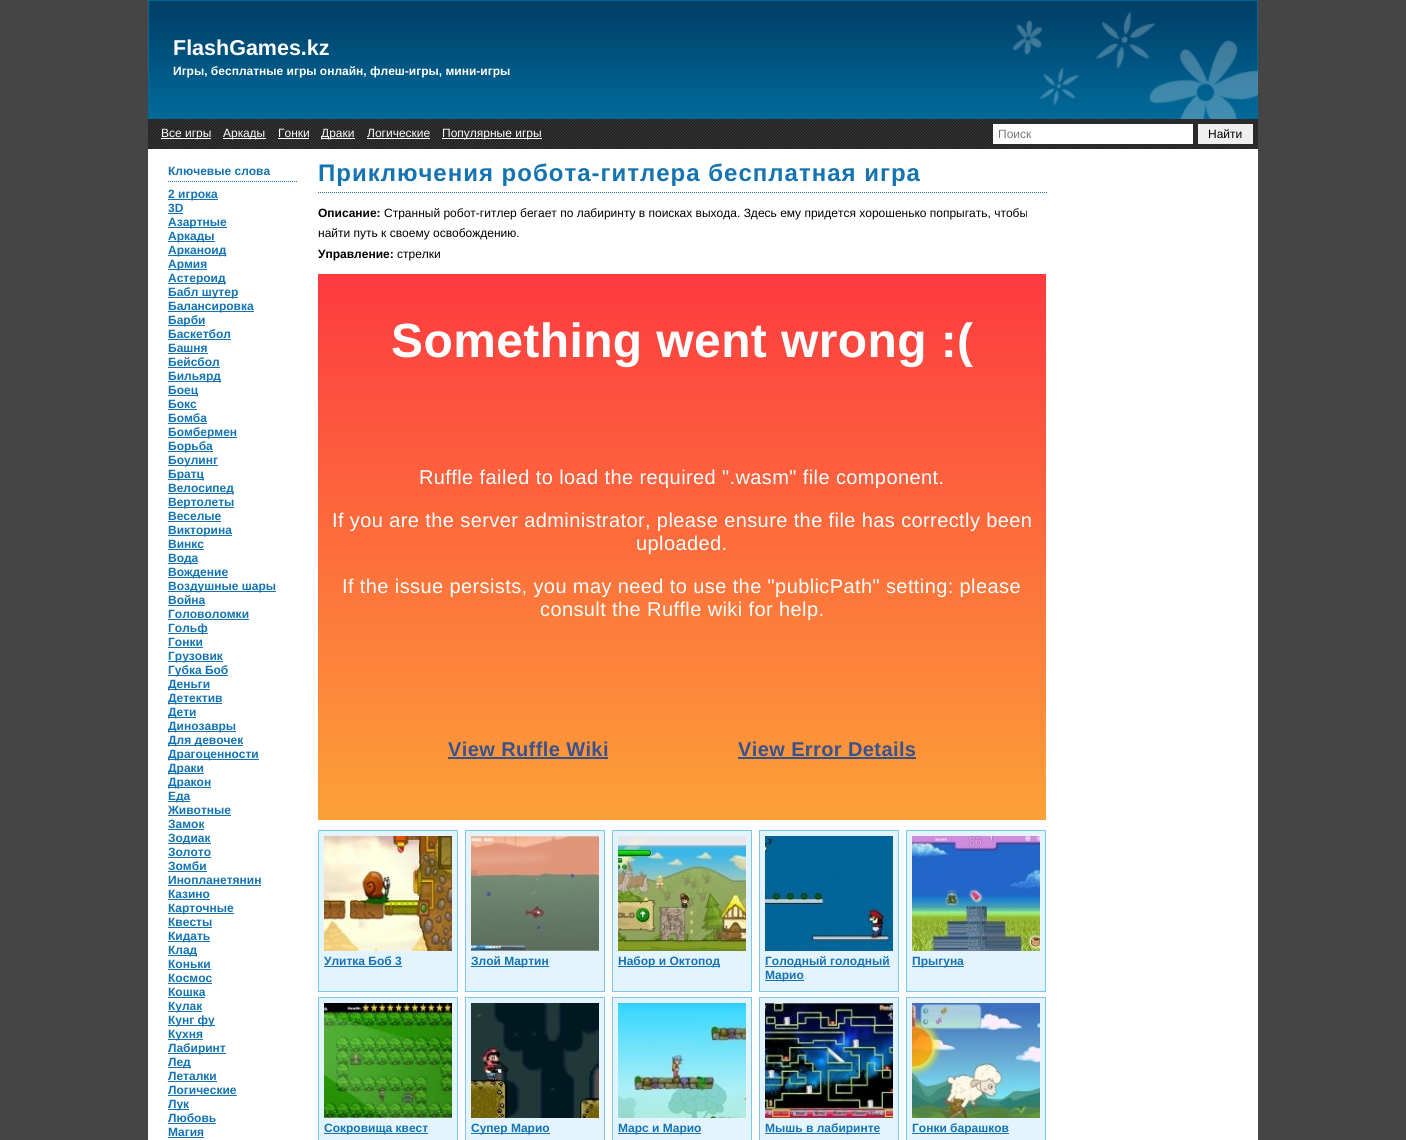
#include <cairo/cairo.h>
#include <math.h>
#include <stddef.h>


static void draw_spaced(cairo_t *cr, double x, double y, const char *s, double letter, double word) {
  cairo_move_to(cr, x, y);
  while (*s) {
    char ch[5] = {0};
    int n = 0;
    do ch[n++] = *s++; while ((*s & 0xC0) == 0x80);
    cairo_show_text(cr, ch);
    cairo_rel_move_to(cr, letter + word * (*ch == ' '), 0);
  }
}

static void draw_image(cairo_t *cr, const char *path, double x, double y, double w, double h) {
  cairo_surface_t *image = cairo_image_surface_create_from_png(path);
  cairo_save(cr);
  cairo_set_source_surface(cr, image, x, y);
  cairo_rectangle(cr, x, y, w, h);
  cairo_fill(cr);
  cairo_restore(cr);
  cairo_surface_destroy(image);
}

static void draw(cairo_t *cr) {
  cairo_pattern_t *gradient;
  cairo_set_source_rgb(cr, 69 / 255.0, 69 / 255.0, 69 / 255.0);
  cairo_paint(cr);
  draw_image(cr, "images/1.png", 148, 0, 1110, 119);
  draw_image(cr, "images/2.png", 148, 119, 1110, 30);
  cairo_set_source_rgb(cr, 1, 1, 1);
  cairo_rectangle(cr, 161, 138, 50, 1);
  cairo_fill(cr);
  cairo_rectangle(cr, 223, 138, 43, 1);
  cairo_fill(cr);
  cairo_rectangle(cr, 278, 138, 31, 1);
  cairo_fill(cr);
  cairo_rectangle(cr, 321, 138, 34, 1);
  cairo_fill(cr);
  cairo_rectangle(cr, 367, 138, 63, 1);
  cairo_fill(cr);
  cairo_rectangle(cr, 442, 138, 100, 1);
  cairo_fill(cr);
  cairo_rectangle(cr, 993, 124, 200, 20);
  cairo_fill(cr);
  cairo_set_source_rgb(cr, 239 / 255.0, 239 / 255.0, 239 / 255.0);
  cairo_rectangle(cr, 1198, 124, 55, 20);
  cairo_fill(cr);
  cairo_set_source_rgb(cr, 1, 1, 1);
  cairo_rectangle(cr, 148, 149, 1110, 991);
  cairo_fill(cr);
  cairo_new_path(cr);
  cairo_move_to(cr, 168, 181.5);
  cairo_line_to(cr, 298, 181.5);
  cairo_set_source_rgb(cr, 20 / 255.0, 115 / 255.0, 176 / 255.0);
  cairo_set_line_width(cr, 1);
  cairo_set_dash(cr, (double[]){1, 1}, 2, 0);
  cairo_stroke(cr);
  cairo_rectangle(cr, 168, 199, 50, 1);
  cairo_fill(cr);
  cairo_rectangle(cr, 168, 213, 15, 1);
  cairo_fill(cr);
  cairo_rectangle(cr, 168, 227, 59, 1);
  cairo_fill(cr);
  cairo_rectangle(cr, 168, 241, 47, 1);
  cairo_fill(cr);
  cairo_rectangle(cr, 168, 255, 58, 1);
  cairo_fill(cr);
  cairo_rectangle(cr, 168, 269, 39, 1);
  cairo_fill(cr);
  cairo_rectangle(cr, 168, 283, 58, 1);
  cairo_fill(cr);
  cairo_rectangle(cr, 168, 297, 70, 1);
  cairo_fill(cr);
  cairo_rectangle(cr, 168, 311, 86, 1);
  cairo_fill(cr);
  cairo_rectangle(cr, 168, 325, 37, 1);
  cairo_fill(cr);
  cairo_rectangle(cr, 168, 339, 63, 1);
  cairo_fill(cr);
  cairo_rectangle(cr, 168, 353, 40, 1);
  cairo_fill(cr);
  cairo_rectangle(cr, 168, 367, 52, 1);
  cairo_fill(cr);
  cairo_rectangle(cr, 168, 381, 53, 1);
  cairo_fill(cr);
  cairo_rectangle(cr, 168, 395, 30, 1);
  cairo_fill(cr);
  cairo_rectangle(cr, 168, 409, 29, 1);
  cairo_fill(cr);
  cairo_rectangle(cr, 168, 423, 39, 1);
  cairo_fill(cr);
  cairo_rectangle(cr, 168, 437, 69, 1);
  cairo_fill(cr);
  cairo_rectangle(cr, 168, 451, 45, 1);
  cairo_fill(cr);
  cairo_rectangle(cr, 168, 465, 50, 1);
  cairo_fill(cr);
  cairo_rectangle(cr, 168, 479, 36, 1);
  cairo_fill(cr);
  cairo_rectangle(cr, 168, 493, 66, 1);
  cairo_fill(cr);
  cairo_rectangle(cr, 168, 507, 66, 1);
  cairo_fill(cr);
  cairo_rectangle(cr, 168, 521, 53, 1);
  cairo_fill(cr);
  cairo_rectangle(cr, 168, 535, 64, 1);
  cairo_fill(cr);
  cairo_rectangle(cr, 168, 549, 36, 1);
  cairo_fill(cr);
  cairo_rectangle(cr, 168, 563, 30, 1);
  cairo_fill(cr);
  cairo_rectangle(cr, 168, 577, 60, 1);
  cairo_fill(cr);
  cairo_rectangle(cr, 168, 591, 108, 1);
  cairo_fill(cr);
  cairo_rectangle(cr, 168, 605, 37, 1);
  cairo_fill(cr);
  cairo_rectangle(cr, 168, 619, 81, 1);
  cairo_fill(cr);
  cairo_rectangle(cr, 168, 633, 40, 1);
  cairo_fill(cr);
  cairo_rectangle(cr, 168, 647, 35, 1);
  cairo_fill(cr);
  cairo_rectangle(cr, 168, 661, 55, 1);
  cairo_fill(cr);
  cairo_rectangle(cr, 168, 675, 60, 1);
  cairo_fill(cr);
  cairo_rectangle(cr, 168, 689, 42, 1);
  cairo_fill(cr);
  cairo_rectangle(cr, 168, 703, 54, 1);
  cairo_fill(cr);
  cairo_rectangle(cr, 168, 717, 28, 1);
  cairo_fill(cr);
  cairo_rectangle(cr, 168, 731, 68, 1);
  cairo_fill(cr);
  cairo_rectangle(cr, 168, 745, 75, 1);
  cairo_fill(cr);
  cairo_rectangle(cr, 168, 759, 91, 1);
  cairo_fill(cr);
  cairo_rectangle(cr, 168, 773, 36, 1);
  cairo_fill(cr);
  cairo_rectangle(cr, 168, 787, 43, 1);
  cairo_fill(cr);
  cairo_rectangle(cr, 168, 801, 22, 1);
  cairo_fill(cr);
  cairo_rectangle(cr, 168, 815, 63, 1);
  cairo_fill(cr);
  cairo_rectangle(cr, 168, 829, 36, 1);
  cairo_fill(cr);
  cairo_rectangle(cr, 168, 843, 43, 1);
  cairo_fill(cr);
  cairo_rectangle(cr, 168, 857, 43, 1);
  cairo_fill(cr);
  cairo_rectangle(cr, 168, 871, 39, 1);
  cairo_fill(cr);
  cairo_rectangle(cr, 168, 885, 93, 1);
  cairo_fill(cr);
  cairo_rectangle(cr, 168, 899, 42, 1);
  cairo_fill(cr);
  cairo_rectangle(cr, 168, 913, 66, 1);
  cairo_fill(cr);
  cairo_rectangle(cr, 168, 927, 44, 1);
  cairo_fill(cr);
  cairo_rectangle(cr, 168, 941, 42, 1);
  cairo_fill(cr);
  cairo_rectangle(cr, 168, 955, 29, 1);
  cairo_fill(cr);
  cairo_rectangle(cr, 168, 969, 43, 1);
  cairo_fill(cr);
  cairo_rectangle(cr, 168, 983, 44, 1);
  cairo_fill(cr);
  cairo_rectangle(cr, 168, 997, 37, 1);
  cairo_fill(cr);
  cairo_rectangle(cr, 168, 1011, 34, 1);
  cairo_fill(cr);
  cairo_rectangle(cr, 168, 1025, 47, 1);
  cairo_fill(cr);
  cairo_rectangle(cr, 168, 1039, 35, 1);
  cairo_fill(cr);
  cairo_rectangle(cr, 168, 1053, 58, 1);
  cairo_fill(cr);
  cairo_rectangle(cr, 168, 1067, 23, 1);
  cairo_fill(cr);
  cairo_rectangle(cr, 168, 1081, 49, 1);
  cairo_fill(cr);
  cairo_rectangle(cr, 168, 1095, 69, 1);
  cairo_fill(cr);
  cairo_rectangle(cr, 168, 1109, 21, 1);
  cairo_fill(cr);
  cairo_rectangle(cr, 168, 1123, 48, 1);
  cairo_fill(cr);
  cairo_rectangle(cr, 168, 1137, 36, 1);
  cairo_fill(cr);
  cairo_new_path(cr);
  cairo_move_to(cr, 318, 192.5);
  cairo_line_to(cr, 1048, 192.5);
  cairo_stroke(cr);
  gradient = cairo_pattern_create_linear(682, 274, 682, 820);
  cairo_pattern_add_color_stop_rgba(gradient, 0, 253 / 255.0, 58 / 255.0, 64 / 255.0, 1);
  cairo_pattern_add_color_stop_rgba(gradient, 1, 253 / 255.0, 161 / 255.0, 56 / 255.0, 1);
  cairo_set_source(cr, gradient);
  cairo_pattern_destroy(gradient);
  cairo_rectangle(cr, 318, 274, 728, 546);
  cairo_fill(cr);
  cairo_set_source_rgb(cr, 55 / 255.0, 82 / 255.0, 140 / 255.0);
  cairo_rectangle(cr, 448, 757, 160, 2);
  cairo_fill(cr);
  cairo_rectangle(cr, 738, 757, 178, 2);
  cairo_fill(cr);
  cairo_set_source_rgb(cr, 227 / 255.0, 244 / 255.0, 1);
  cairo_rectangle(cr, 318.5, 830.5, 139, 161);
  cairo_fill_preserve(cr);
  cairo_set_source_rgb(cr, 126 / 255.0, 198 / 255.0, 246 / 255.0);
  cairo_set_dash(cr, NULL, 0, 0);
  cairo_stroke(cr);
  draw_image(cr, "images/3.png", 324, 836, 128, 115);
  cairo_set_source_rgb(cr, 20 / 255.0, 115 / 255.0, 176 / 255.0);
  cairo_rectangle(cr, 324, 966, 78, 1);
  cairo_fill(cr);
  cairo_set_source_rgb(cr, 227 / 255.0, 244 / 255.0, 1);
  cairo_rectangle(cr, 465.5, 830.5, 139, 161);
  cairo_fill_preserve(cr);
  cairo_set_source_rgb(cr, 126 / 255.0, 198 / 255.0, 246 / 255.0);
  cairo_stroke(cr);
  draw_image(cr, "images/4.png", 471, 836, 128, 115);
  cairo_set_source_rgb(cr, 20 / 255.0, 115 / 255.0, 176 / 255.0);
  cairo_rectangle(cr, 471, 966, 78, 1);
  cairo_fill(cr);
  cairo_set_source_rgb(cr, 227 / 255.0, 244 / 255.0, 1);
  cairo_rectangle(cr, 612.5, 830.5, 139, 161);
  cairo_fill_preserve(cr);
  cairo_set_source_rgb(cr, 126 / 255.0, 198 / 255.0, 246 / 255.0);
  cairo_stroke(cr);
  draw_image(cr, "images/5.png", 618, 836, 128, 115);
  cairo_set_source_rgb(cr, 20 / 255.0, 115 / 255.0, 176 / 255.0);
  cairo_rectangle(cr, 618, 966, 102, 1);
  cairo_fill(cr);
  cairo_set_source_rgb(cr, 227 / 255.0, 244 / 255.0, 1);
  cairo_rectangle(cr, 759.5, 830.5, 139, 161);
  cairo_fill_preserve(cr);
  cairo_set_source_rgb(cr, 126 / 255.0, 198 / 255.0, 246 / 255.0);
  cairo_stroke(cr);
  draw_image(cr, "images/6.png", 765, 836, 128, 115);
  cairo_set_source_rgb(cr, 20 / 255.0, 115 / 255.0, 176 / 255.0);
  cairo_rectangle(cr, 765, 966, 125, 1);
  cairo_fill(cr);
  cairo_rectangle(cr, 765, 980, 39, 1);
  cairo_fill(cr);
  cairo_set_source_rgb(cr, 227 / 255.0, 244 / 255.0, 1);
  cairo_rectangle(cr, 906.5, 830.5, 139, 161);
  cairo_fill_preserve(cr);
  cairo_set_source_rgb(cr, 126 / 255.0, 198 / 255.0, 246 / 255.0);
  cairo_stroke(cr);
  draw_image(cr, "images/7.png", 912, 836, 128, 115);
  cairo_set_source_rgb(cr, 20 / 255.0, 115 / 255.0, 176 / 255.0);
  cairo_rectangle(cr, 912, 966, 52, 1);
  cairo_fill(cr);
  cairo_set_source_rgb(cr, 227 / 255.0, 244 / 255.0, 1);
  cairo_rectangle(cr, 318.5, 997.5, 139, 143);
  cairo_fill_preserve(cr);
  cairo_set_source_rgb(cr, 126 / 255.0, 198 / 255.0, 246 / 255.0);
  cairo_stroke(cr);
  draw_image(cr, "images/8.png", 324, 1003, 128, 115);
  cairo_set_source_rgb(cr, 20 / 255.0, 115 / 255.0, 176 / 255.0);
  cairo_rectangle(cr, 324, 1133, 104, 1);
  cairo_fill(cr);
  cairo_set_source_rgb(cr, 227 / 255.0, 244 / 255.0, 1);
  cairo_rectangle(cr, 465.5, 997.5, 139, 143);
  cairo_fill_preserve(cr);
  cairo_set_source_rgb(cr, 126 / 255.0, 198 / 255.0, 246 / 255.0);
  cairo_stroke(cr);
  draw_image(cr, "images/9.png", 471, 1003, 128, 115);
  cairo_set_source_rgb(cr, 20 / 255.0, 115 / 255.0, 176 / 255.0);
  cairo_rectangle(cr, 471, 1133, 79, 1);
  cairo_fill(cr);
  cairo_set_source_rgb(cr, 227 / 255.0, 244 / 255.0, 1);
  cairo_rectangle(cr, 612.5, 997.5, 139, 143);
  cairo_fill_preserve(cr);
  cairo_set_source_rgb(cr, 126 / 255.0, 198 / 255.0, 246 / 255.0);
  cairo_stroke(cr);
  draw_image(cr, "images/10.png", 618, 1003, 128, 115);
  cairo_set_source_rgb(cr, 20 / 255.0, 115 / 255.0, 176 / 255.0);
  cairo_rectangle(cr, 618, 1133, 83, 1);
  cairo_fill(cr);
  cairo_set_source_rgb(cr, 227 / 255.0, 244 / 255.0, 1);
  cairo_rectangle(cr, 759.5, 997.5, 139, 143);
  cairo_fill_preserve(cr);
  cairo_set_source_rgb(cr, 126 / 255.0, 198 / 255.0, 246 / 255.0);
  cairo_stroke(cr);
  draw_image(cr, "images/11.png", 765, 1003, 128, 115);
  cairo_set_source_rgb(cr, 20 / 255.0, 115 / 255.0, 176 / 255.0);
  cairo_rectangle(cr, 765, 1133, 115, 1);
  cairo_fill(cr);
  cairo_set_source_rgb(cr, 227 / 255.0, 244 / 255.0, 1);
  cairo_rectangle(cr, 906.5, 997.5, 139, 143);
  cairo_fill_preserve(cr);
  cairo_set_source_rgb(cr, 126 / 255.0, 198 / 255.0, 246 / 255.0);
  cairo_stroke(cr);
  draw_image(cr, "images/12.png", 912, 1003, 128, 115);
  cairo_set_source_rgb(cr, 20 / 255.0, 115 / 255.0, 176 / 255.0);
  cairo_rectangle(cr, 912, 1133, 97, 1);
  cairo_fill(cr);
  cairo_select_font_face(cr, "Liberation Sans", CAIRO_FONT_SLANT_NORMAL, CAIRO_FONT_WEIGHT_BOLD);
  cairo_set_font_size(cr, 21.5);
  cairo_set_source_rgb(cr, 1, 1, 1);
  cairo_move_to(cr, 173, 55);
  cairo_show_text(cr, "FlashGames.kz");
  cairo_set_font_size(cr, 12);
  cairo_move_to(cr, 173, 75);
  cairo_show_text(cr, "Игры, бесплатные игры онлайн, флеш-игры, мини-игры");
  cairo_select_font_face(cr, "Liberation Sans", CAIRO_FONT_SLANT_NORMAL, CAIRO_FONT_WEIGHT_NORMAL);
  cairo_move_to(cr, 161, 137);
  cairo_show_text(cr, "Все игры");
  cairo_move_to(cr, 223, 137);
  cairo_show_text(cr, "Аркады");
  cairo_move_to(cr, 278, 137);
  cairo_show_text(cr, "Гонки");
  cairo_move_to(cr, 321, 137);
  cairo_show_text(cr, "Драки");
  cairo_move_to(cr, 367, 137);
  cairo_show_text(cr, "Логические");
  cairo_move_to(cr, 442, 137);
  cairo_show_text(cr, "Популярные игры");
  cairo_set_source_rgb(cr, 117 / 255.0, 117 / 255.0, 117 / 255.0);
  cairo_move_to(cr, 998, 138);
  cairo_show_text(cr, "Поиск");
  cairo_set_source_rgb(cr, 0, 0, 0);
  cairo_move_to(cr, 1208, 138);
  cairo_show_text(cr, "Найти");
  cairo_select_font_face(cr, "Liberation Sans", CAIRO_FONT_SLANT_NORMAL, CAIRO_FONT_WEIGHT_BOLD);
  cairo_set_source_rgb(cr, 20 / 255.0, 115 / 255.0, 176 / 255.0);
  cairo_move_to(cr, 168, 175);
  cairo_show_text(cr, "Ключевые слова");
  cairo_move_to(cr, 168, 198);
  cairo_show_text(cr, "2 игрока");
  cairo_move_to(cr, 168, 212);
  cairo_show_text(cr, "3D");
  cairo_move_to(cr, 168, 226);
  cairo_show_text(cr, "Азартные");
  cairo_move_to(cr, 168, 240);
  cairo_show_text(cr, "Аркады");
  cairo_move_to(cr, 168, 254);
  cairo_show_text(cr, "Арканоид");
  cairo_move_to(cr, 168, 268);
  cairo_show_text(cr, "Армия");
  cairo_move_to(cr, 168, 282);
  cairo_show_text(cr, "Астероид");
  cairo_move_to(cr, 168, 296);
  cairo_show_text(cr, "Бабл шутер");
  cairo_move_to(cr, 168, 310);
  cairo_show_text(cr, "Балансировка");
  cairo_move_to(cr, 168, 324);
  cairo_show_text(cr, "Барби");
  cairo_move_to(cr, 168, 338);
  cairo_show_text(cr, "Баскетбол");
  cairo_move_to(cr, 168, 352);
  cairo_show_text(cr, "Башня");
  cairo_move_to(cr, 168, 366);
  cairo_show_text(cr, "Бейсбол");
  cairo_move_to(cr, 168, 380);
  cairo_show_text(cr, "Бильярд");
  cairo_move_to(cr, 168, 394);
  cairo_show_text(cr, "Боец");
  cairo_move_to(cr, 168, 408);
  cairo_show_text(cr, "Бокс");
  cairo_move_to(cr, 168, 422);
  cairo_show_text(cr, "Бомба");
  cairo_move_to(cr, 168, 436);
  cairo_show_text(cr, "Бомбермен");
  cairo_move_to(cr, 168, 450);
  cairo_show_text(cr, "Борьба");
  cairo_move_to(cr, 168, 464);
  cairo_show_text(cr, "Боулинг");
  cairo_move_to(cr, 168, 478);
  cairo_show_text(cr, "Братц");
  cairo_move_to(cr, 168, 492);
  cairo_show_text(cr, "Велосипед");
  cairo_move_to(cr, 168, 506);
  cairo_show_text(cr, "Вертолеты");
  cairo_move_to(cr, 168, 520);
  cairo_show_text(cr, "Веселые");
  cairo_move_to(cr, 168, 534);
  cairo_show_text(cr, "Викторина");
  cairo_move_to(cr, 168, 548);
  cairo_show_text(cr, "Винкс");
  cairo_move_to(cr, 168, 562);
  cairo_show_text(cr, "Вода");
  cairo_move_to(cr, 168, 576);
  cairo_show_text(cr, "Вождение");
  cairo_move_to(cr, 168, 590);
  cairo_show_text(cr, "Воздушные шары");
  cairo_move_to(cr, 168, 604);
  cairo_show_text(cr, "Война");
  cairo_move_to(cr, 168, 618);
  cairo_show_text(cr, "Головоломки");
  cairo_move_to(cr, 168, 632);
  cairo_show_text(cr, "Гольф");
  cairo_move_to(cr, 168, 646);
  cairo_show_text(cr, "Гонки");
  cairo_move_to(cr, 168, 660);
  cairo_show_text(cr, "Грузовик");
  cairo_move_to(cr, 168, 674);
  cairo_show_text(cr, "Губка Боб");
  cairo_move_to(cr, 168, 688);
  cairo_show_text(cr, "Деньги");
  cairo_move_to(cr, 168, 702);
  cairo_show_text(cr, "Детектив");
  cairo_move_to(cr, 168, 716);
  cairo_show_text(cr, "Дети");
  cairo_move_to(cr, 168, 730);
  cairo_show_text(cr, "Динозавры");
  cairo_move_to(cr, 168, 744);
  cairo_show_text(cr, "Для девочек");
  cairo_move_to(cr, 168, 758);
  cairo_show_text(cr, "Драгоценности");
  cairo_move_to(cr, 168, 772);
  cairo_show_text(cr, "Драки");
  cairo_move_to(cr, 168, 786);
  cairo_show_text(cr, "Дракон");
  cairo_move_to(cr, 168, 800);
  cairo_show_text(cr, "Еда");
  cairo_move_to(cr, 168, 814);
  cairo_show_text(cr, "Животные");
  cairo_move_to(cr, 168, 828);
  cairo_show_text(cr, "Замок");
  cairo_move_to(cr, 168, 842);
  cairo_show_text(cr, "Зодиак");
  cairo_move_to(cr, 168, 856);
  cairo_show_text(cr, "Золото");
  cairo_move_to(cr, 168, 870);
  cairo_show_text(cr, "Зомби");
  cairo_move_to(cr, 168, 884);
  cairo_show_text(cr, "Инопланетянин");
  cairo_move_to(cr, 168, 898);
  cairo_show_text(cr, "Казино");
  cairo_move_to(cr, 168, 912);
  cairo_show_text(cr, "Карточные");
  cairo_move_to(cr, 168, 926);
  cairo_show_text(cr, "Квесты");
  cairo_move_to(cr, 168, 940);
  cairo_show_text(cr, "Кидать");
  cairo_move_to(cr, 168, 954);
  cairo_show_text(cr, "Клад");
  cairo_move_to(cr, 168, 968);
  cairo_show_text(cr, "Коньки");
  cairo_move_to(cr, 168, 982);
  cairo_show_text(cr, "Космос");
  cairo_move_to(cr, 168, 996);
  cairo_show_text(cr, "Кошка");
  cairo_move_to(cr, 168, 1010);
  cairo_show_text(cr, "Кулак");
  cairo_move_to(cr, 168, 1024);
  cairo_show_text(cr, "Кунг фу");
  cairo_move_to(cr, 168, 1038);
  cairo_show_text(cr, "Кухня");
  cairo_move_to(cr, 168, 1052);
  cairo_show_text(cr, "Лабиринт");
  cairo_move_to(cr, 168, 1066);
  cairo_show_text(cr, "Лед");
  cairo_move_to(cr, 168, 1080);
  cairo_show_text(cr, "Леталки");
  cairo_move_to(cr, 168, 1094);
  cairo_show_text(cr, "Логические");
  cairo_move_to(cr, 168, 1108);
  cairo_show_text(cr, "Лук");
  cairo_move_to(cr, 168, 1122);
  cairo_show_text(cr, "Любовь");
  cairo_move_to(cr, 168, 1136);
  cairo_show_text(cr, "Магия");
  cairo_set_font_size(cr, 24);
  draw_spaced(cr, 318, 181, "Приключения робота-гитлера бесплатная игра", 1, 0);
  cairo_set_font_size(cr, 12);
  cairo_set_source_rgb(cr, 0, 0, 0);
  cairo_move_to(cr, 318, 217);
  cairo_show_text(cr, "Описание:");
  cairo_select_font_face(cr, "Liberation Sans", CAIRO_FONT_SLANT_NORMAL, CAIRO_FONT_WEIGHT_NORMAL);
  cairo_move_to(cr, 384, 217);
  cairo_show_text(cr, "Странный робот-гитлер бегает по лабиринту в поисках выхода. Здесь ему придется хорошенько попрыгать, чтобы");
  cairo_move_to(cr, 318, 237);
  cairo_show_text(cr, "найти путь к своему освобождению.");
  cairo_select_font_face(cr, "Liberation Sans", CAIRO_FONT_SLANT_NORMAL, CAIRO_FONT_WEIGHT_BOLD);
  cairo_move_to(cr, 318, 258);
  cairo_show_text(cr, "Управление:");
  cairo_select_font_face(cr, "Liberation Sans", CAIRO_FONT_SLANT_NORMAL, CAIRO_FONT_WEIGHT_NORMAL);
  cairo_move_to(cr, 397, 258);
  cairo_show_text(cr, "стрелки");
  cairo_select_font_face(cr, "Liberation Sans", CAIRO_FONT_SLANT_NORMAL, CAIRO_FONT_WEIGHT_BOLD);
  cairo_set_font_size(cr, 48);
  cairo_set_source_rgb(cr, 1, 1, 1);
  draw_spaced(cr, 391, 357, "Something went wrong :(", 0.4, 0);
  cairo_select_font_face(cr, "Liberation Sans", CAIRO_FONT_SLANT_NORMAL, CAIRO_FONT_WEIGHT_NORMAL);
  cairo_set_font_size(cr, 20);
  draw_spaced(cr, 419, 484, "Ruffle failed to load the required \".wasm\" file component.", 0.4, 0);
  draw_spaced(cr, 332, 527, "If you are the server administrator, please ensure the file has correctly been", 0.4, 0);
  draw_spaced(cr, 636, 550, "uploaded.", 0.4, 0);
  draw_spaced(cr, 342, 593, "If the issue persists, you may need to use the \"publicPath\" setting: please", 0.4, 0);
  draw_spaced(cr, 540, 616, "consult the Ruffle wiki for help.", 0.4, 0);
  cairo_select_font_face(cr, "Liberation Sans", CAIRO_FONT_SLANT_NORMAL, CAIRO_FONT_WEIGHT_BOLD);
  cairo_set_source_rgb(cr, 55 / 255.0, 82 / 255.0, 140 / 255.0);
  draw_spaced(cr, 448, 756, "View Ruffle Wiki", 0.4, 0);
  draw_spaced(cr, 738, 756, "View Error Details", 0.4, 0);
  cairo_set_font_size(cr, 12);
  cairo_set_source_rgb(cr, 20 / 255.0, 115 / 255.0, 176 / 255.0);
  cairo_move_to(cr, 324, 965);
  cairo_show_text(cr, "Улитка Боб 3");
  cairo_move_to(cr, 471, 965);
  cairo_show_text(cr, "Злой Мартин");
  cairo_move_to(cr, 618, 965);
  cairo_show_text(cr, "Набор и Октопод");
  cairo_move_to(cr, 765, 965);
  cairo_show_text(cr, "Голодный голодный");
  cairo_move_to(cr, 765, 979);
  cairo_show_text(cr, "Марио");
  cairo_move_to(cr, 912, 965);
  cairo_show_text(cr, "Прыгуна");
  cairo_move_to(cr, 324, 1132);
  cairo_show_text(cr, "Сокровища квест");
  cairo_move_to(cr, 471, 1132);
  cairo_show_text(cr, "Супер Марио");
  cairo_move_to(cr, 618, 1132);
  cairo_show_text(cr, "Марс и Марио");
  cairo_move_to(cr, 765, 1132);
  cairo_show_text(cr, "Мышь в лабиринте");
  cairo_move_to(cr, 912, 1132);
  cairo_show_text(cr, "Гонки барашков");
}

int main(void) {
  cairo_surface_t *surface = cairo_image_surface_create(CAIRO_FORMAT_RGB24, 1406, 1140);
  cairo_t *cr = cairo_create(surface);
  cairo_font_options_t *options = cairo_font_options_create();
  cairo_font_options_set_hint_metrics(options, CAIRO_HINT_METRICS_OFF);
  cairo_font_options_set_hint_style(options, CAIRO_HINT_STYLE_NONE);
  cairo_set_font_options(cr, options);
  cairo_set_miter_limit(cr, 4);
  draw(cr);
  cairo_surface_write_to_png(surface, "out.png");
  cairo_font_options_destroy(options);
  cairo_destroy(cr);
  cairo_surface_destroy(surface);
  return 0;
}
